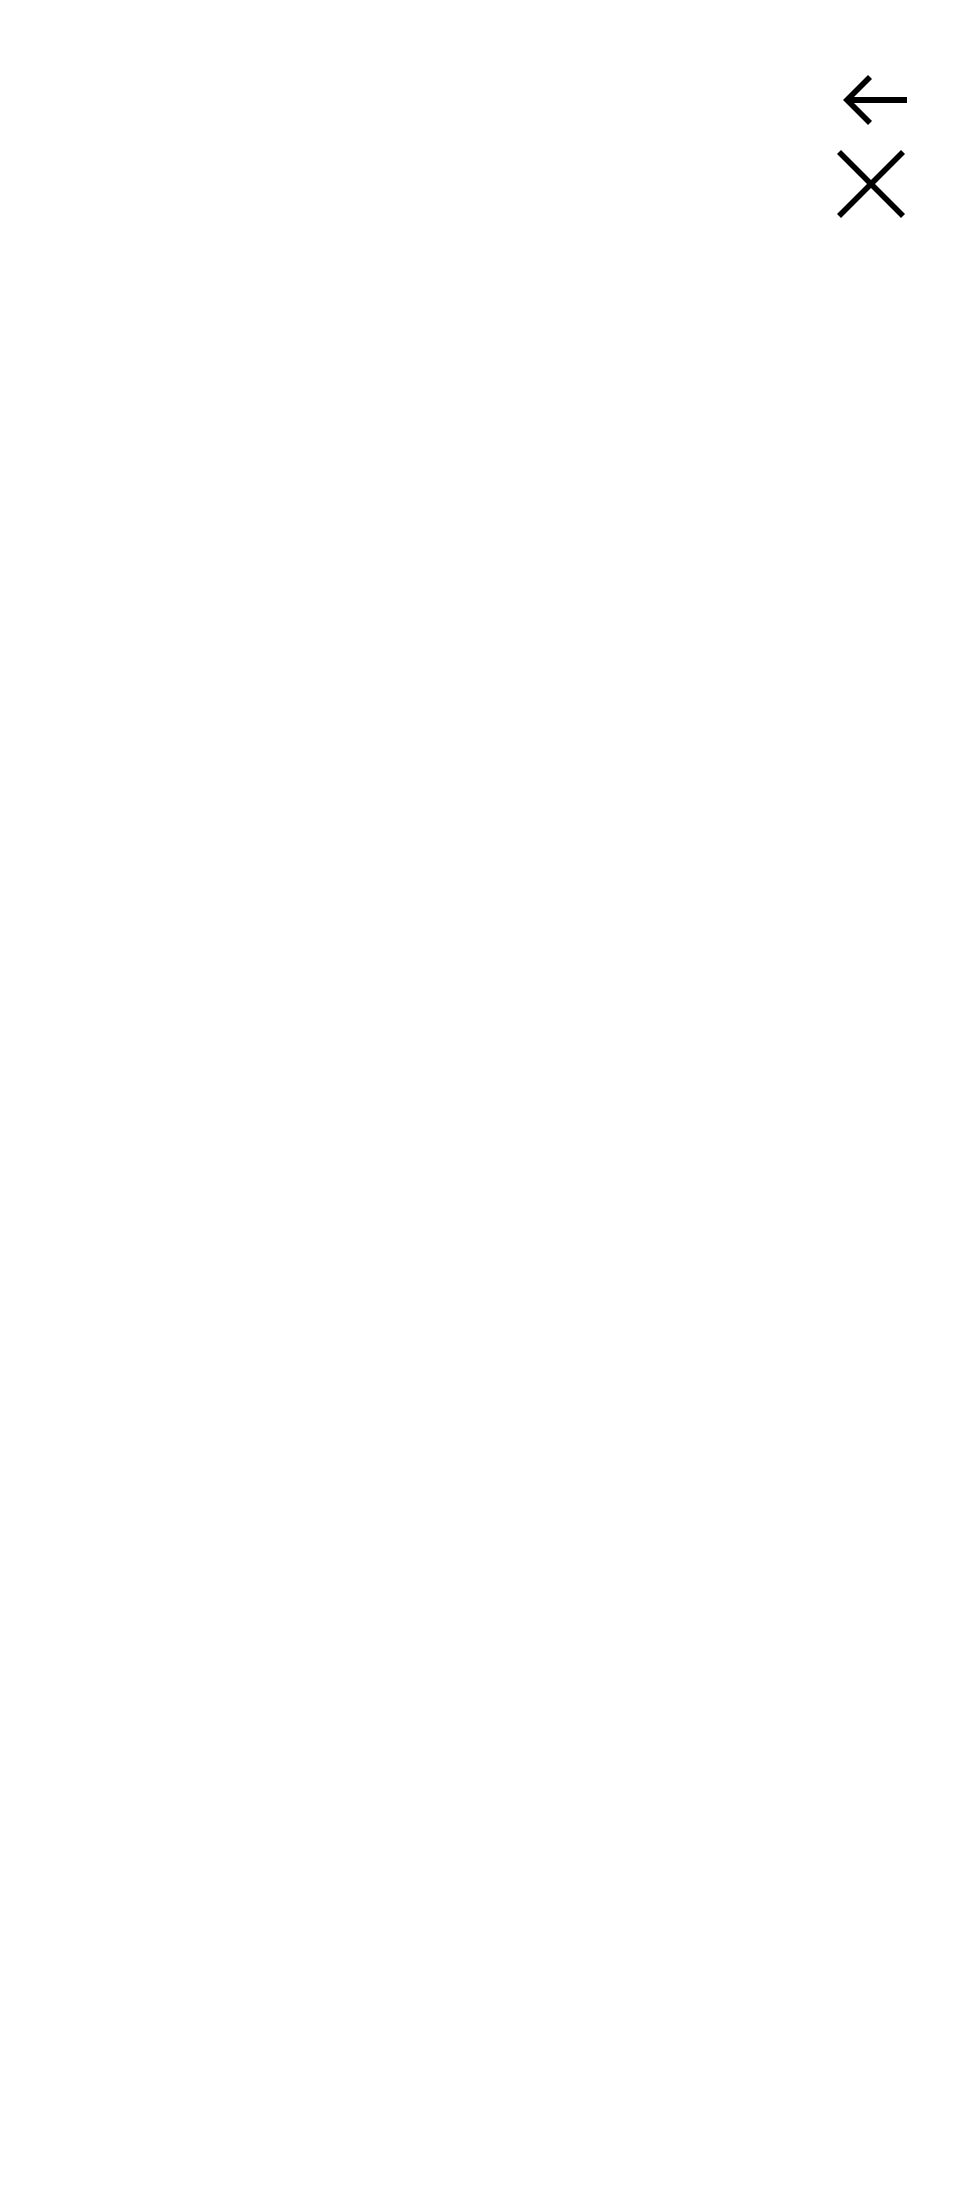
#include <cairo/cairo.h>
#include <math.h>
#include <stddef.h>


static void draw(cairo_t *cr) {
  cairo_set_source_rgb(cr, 1, 1, 1);
  cairo_paint(cr);
  cairo_set_source_rgb(cr, 0, 0, 0);
  cairo_new_path(cr);
  cairo_move_to(cr, 868, 75);
  cairo_line_to(cr, 872, 79);
  cairo_line_to(cr, 854, 97);
  cairo_line_to(cr, 907, 97);
  cairo_line_to(cr, 907, 103);
  cairo_line_to(cr, 854, 103);
  cairo_line_to(cr, 872, 121);
  cairo_line_to(cr, 868, 125);
  cairo_line_to(cr, 843, 100);
  cairo_close_path(cr);
  cairo_fill(cr);
  cairo_set_fill_rule(cr, CAIRO_FILL_RULE_EVEN_ODD);
  cairo_new_path(cr);
  cairo_move_to(cr, 837, 154);
  cairo_line_to(cr, 841, 150);
  cairo_line_to(cr, 905, 214);
  cairo_line_to(cr, 901, 218);
  cairo_close_path(cr);
  cairo_fill(cr);
  cairo_new_path(cr);
  cairo_move_to(cr, 901, 150);
  cairo_line_to(cr, 905, 154);
  cairo_line_to(cr, 841, 218);
  cairo_line_to(cr, 837, 214);
  cairo_close_path(cr);
  cairo_fill(cr);
}

int main(void) {
  cairo_surface_t *surface = cairo_image_surface_create(CAIRO_FORMAT_RGB24, 964, 2203);
  cairo_t *cr = cairo_create(surface);
  cairo_font_options_t *options = cairo_font_options_create();
  cairo_font_options_set_hint_metrics(options, CAIRO_HINT_METRICS_OFF);
  cairo_font_options_set_hint_style(options, CAIRO_HINT_STYLE_NONE);
  cairo_set_font_options(cr, options);
  cairo_set_miter_limit(cr, 4);
  draw(cr);
  cairo_surface_write_to_png(surface, "out.png");
  cairo_font_options_destroy(options);
  cairo_destroy(cr);
  cairo_surface_destroy(surface);
  return 0;
}
